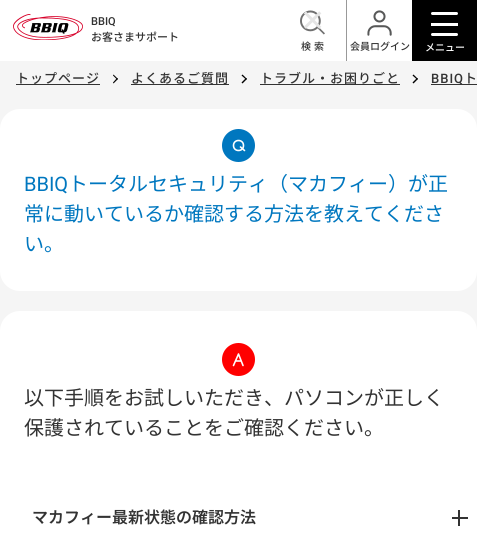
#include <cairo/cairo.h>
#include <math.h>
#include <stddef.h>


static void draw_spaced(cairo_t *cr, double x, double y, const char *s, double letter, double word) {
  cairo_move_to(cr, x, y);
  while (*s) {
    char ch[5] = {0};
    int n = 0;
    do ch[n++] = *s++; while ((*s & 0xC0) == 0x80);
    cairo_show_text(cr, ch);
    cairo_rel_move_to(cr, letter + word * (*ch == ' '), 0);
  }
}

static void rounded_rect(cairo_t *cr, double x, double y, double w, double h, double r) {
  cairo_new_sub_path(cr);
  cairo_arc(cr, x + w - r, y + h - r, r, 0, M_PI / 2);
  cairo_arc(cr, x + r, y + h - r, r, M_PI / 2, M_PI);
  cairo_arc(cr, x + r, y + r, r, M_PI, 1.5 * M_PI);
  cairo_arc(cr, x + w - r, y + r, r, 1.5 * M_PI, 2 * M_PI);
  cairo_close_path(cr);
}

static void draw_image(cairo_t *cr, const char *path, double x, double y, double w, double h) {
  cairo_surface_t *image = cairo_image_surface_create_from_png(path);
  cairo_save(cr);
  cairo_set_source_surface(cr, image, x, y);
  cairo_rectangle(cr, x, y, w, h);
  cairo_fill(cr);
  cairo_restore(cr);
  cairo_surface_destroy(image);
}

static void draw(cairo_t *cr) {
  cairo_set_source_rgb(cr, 1, 1, 1);
  cairo_paint(cr);
  draw_image(cr, "images/1.png", 13, 14, 70, 26);
  draw_image(cr, "images/2.png", 300, 10, 25, 25);
  cairo_set_source_rgb(cr, 153 / 255.0, 153 / 255.0, 153 / 255.0);
  cairo_rectangle(cr, 346, 0, 1, 61);
  cairo_fill(cr);
  draw_image(cr, "images/3.png", 367, 10, 25, 26);
  cairo_set_source_rgb(cr, 0, 0, 0);
  cairo_rectangle(cr, 412, 0, 65, 61);
  cairo_fill(cr);
  cairo_set_source_rgb(cr, 1, 1, 1);
  rounded_rect(cr, 431, 12, 27, 3, 1.5);
  cairo_fill(cr);
  cairo_rectangle(cr, 431, 23, 27, 3);
  cairo_fill(cr);
  rounded_rect(cr, 431, 33, 27, 3, 1.5);
  cairo_fill(cr);
  cairo_set_source_rgb(cr, 245 / 255.0, 245 / 255.0, 245 / 255.0);
  cairo_rectangle(cr, 0, 61, 477, 270);
  cairo_fill(cr);
  cairo_set_source_rgb(cr, 51 / 255.0, 51 / 255.0, 51 / 255.0);
  cairo_rectangle(cr, 16, 84, 84, 1);
  cairo_fill(cr);
  cairo_set_source_rgb(cr, 0, 0, 0);
  cairo_new_path(cr);
  cairo_move_to(cr, 113.5, 74.5);
  cairo_line_to(cr, 118, 79);
  cairo_line_to(cr, 117, 79.5);
  cairo_line_to(cr, 113, 75.5);
  cairo_close_path(cr);
  cairo_fill(cr);
  cairo_new_path(cr);
  cairo_move_to(cr, 117, 78);
  cairo_line_to(cr, 118, 79);
  cairo_line_to(cr, 113.5, 83.5);
  cairo_line_to(cr, 113, 82.5);
  cairo_close_path(cr);
  cairo_fill(cr);
  cairo_set_source_rgb(cr, 51 / 255.0, 51 / 255.0, 51 / 255.0);
  cairo_rectangle(cr, 131, 84, 98, 1);
  cairo_fill(cr);
  cairo_set_source_rgb(cr, 0, 0, 0);
  cairo_new_path(cr);
  cairo_move_to(cr, 242.5, 74.5);
  cairo_line_to(cr, 247, 79);
  cairo_line_to(cr, 246, 79.5);
  cairo_line_to(cr, 241.5, 75.5);
  cairo_close_path(cr);
  cairo_fill(cr);
  cairo_new_path(cr);
  cairo_move_to(cr, 246, 78);
  cairo_line_to(cr, 247, 79);
  cairo_line_to(cr, 242.5, 83.5);
  cairo_line_to(cr, 241.5, 82.5);
  cairo_close_path(cr);
  cairo_fill(cr);
  cairo_set_source_rgb(cr, 51 / 255.0, 51 / 255.0, 51 / 255.0);
  cairo_rectangle(cr, 260, 84, 140, 1);
  cairo_fill(cr);
  cairo_set_source_rgb(cr, 0, 0, 0);
  cairo_new_path(cr);
  cairo_move_to(cr, 413.5, 74.5);
  cairo_line_to(cr, 418, 79);
  cairo_line_to(cr, 417, 79.5);
  cairo_line_to(cr, 412.5, 75.5);
  cairo_close_path(cr);
  cairo_fill(cr);
  cairo_new_path(cr);
  cairo_move_to(cr, 417, 78);
  cairo_line_to(cr, 418, 79);
  cairo_line_to(cr, 413.5, 83.5);
  cairo_line_to(cr, 412.5, 82.5);
  cairo_close_path(cr);
  cairo_fill(cr);
  cairo_set_source_rgb(cr, 51 / 255.0, 51 / 255.0, 51 / 255.0);
  cairo_rectangle(cr, 431, 84, 46, 1);
  cairo_fill(cr);
  cairo_set_source_rgb(cr, 1, 1, 1);
  rounded_rect(cr, 0, 109, 477, 182, 20);
  cairo_fill(cr);
  cairo_set_source_rgb(cr, 0, 119 / 255.0, 191 / 255.0);
  cairo_arc(cr, 238.5, 145.5, 16.5, 0, 2 * M_PI);
  cairo_fill(cr);
  cairo_new_path(cr);
  cairo_move_to(cr, 240.5, 147);
  cairo_line_to(cr, 244.5, 150.5);
  cairo_set_source_rgb(cr, 1, 1, 1);
  cairo_set_line_width(cr, 1.6);
  cairo_set_line_cap(cr, CAIRO_LINE_CAP_ROUND);
  cairo_stroke(cr);
  cairo_arc(cr, 238.5, 145.5, 5, 0, 2 * M_PI);
  cairo_set_line_cap(cr, CAIRO_LINE_CAP_BUTT);
  cairo_stroke(cr);
  rounded_rect(cr, 0, 311, 477, 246, 20);
  cairo_fill(cr);
  cairo_set_source_rgb(cr, 1, 0, 0);
  cairo_arc(cr, 238.5, 359.5, 16.5, 0, 2 * M_PI);
  cairo_fill(cr);
  cairo_new_path(cr);
  cairo_move_to(cr, 233.5, 365.5);
  cairo_line_to(cr, 238.5, 354);
  cairo_line_to(cr, 243, 365.5);
  cairo_move_to(cr, 235.5, 361);
  cairo_line_to(cr, 241, 361);
  cairo_set_source_rgb(cr, 1, 1, 1);
  cairo_set_line_cap(cr, CAIRO_LINE_CAP_ROUND);
  cairo_set_line_join(cr, CAIRO_LINE_JOIN_ROUND);
  cairo_stroke(cr);
  cairo_set_source_rgb(cr, 51 / 255.0, 51 / 255.0, 51 / 255.0);
  cairo_rectangle(cr, 452, 517, 16, 2);
  cairo_fill(cr);
  cairo_rectangle(cr, 458, 510, 2, 16);
  cairo_fill(cr);
  cairo_select_font_face(cr, "Roboto Medium", CAIRO_FONT_SLANT_NORMAL, CAIRO_FONT_WEIGHT_NORMAL);
  cairo_set_font_size(cr, 11);
  cairo_move_to(cr, 91, 25);
  cairo_show_text(cr, "BBIQ");
  cairo_select_font_face(cr, "Noto Sans JP Medium", CAIRO_FONT_SLANT_NORMAL, CAIRO_FONT_WEIGHT_NORMAL);
  cairo_move_to(cr, 91, 41);
  cairo_show_text(cr, "お客さまサポート");
  cairo_select_font_face(cr, "DejaVu Sans", CAIRO_FONT_SLANT_NORMAL, CAIRO_FONT_WEIGHT_NORMAL);
  cairo_set_font_size(cr, 30);
  cairo_set_source_rgb(cr, 229 / 255.0, 229 / 255.0, 229 / 255.0);
  draw_spaced(cr, 300, 31, "✕", 9, 0);
  cairo_select_font_face(cr, "Noto Sans JP Medium", CAIRO_FONT_SLANT_NORMAL, CAIRO_FONT_WEIGHT_NORMAL);
  cairo_set_font_size(cr, 10);
  cairo_set_source_rgb(cr, 51 / 255.0, 51 / 255.0, 51 / 255.0);
  draw_spaced(cr, 301, 50, "検索", 3, 0);
  cairo_move_to(cr, 350, 50);
  cairo_show_text(cr, "会員ログイン");
  cairo_set_source_rgb(cr, 1, 1, 1);
  cairo_move_to(cr, 425, 51);
  cairo_show_text(cr, "メニュー");
  cairo_set_font_size(cr, 13);
  cairo_set_source_rgb(cr, 51 / 255.0, 51 / 255.0, 51 / 255.0);
  draw_spaced(cr, 16, 83, "トップページ", 1, 0);
  draw_spaced(cr, 131, 83, "よくあるご質問", 1, 0);
  draw_spaced(cr, 260, 83, "トラブル・お困りごと", 1, 0);
  cairo_select_font_face(cr, "Roboto Medium", CAIRO_FONT_SLANT_NORMAL, CAIRO_FONT_WEIGHT_NORMAL);
  draw_spaced(cr, 431, 83, "BBIQ", 1, 0);
  cairo_select_font_face(cr, "Noto Sans JP Medium", CAIRO_FONT_SLANT_NORMAL, CAIRO_FONT_WEIGHT_NORMAL);
  draw_spaced(cr, 464, 83, "ト", 1, 0);
  cairo_select_font_face(cr, "Roboto", CAIRO_FONT_SLANT_NORMAL, CAIRO_FONT_WEIGHT_NORMAL);
  cairo_set_font_size(cr, 20);
  cairo_set_source_rgb(cr, 0, 119 / 255.0, 191 / 255.0);
  cairo_move_to(cr, 24, 191);
  cairo_show_text(cr, "BBIQ");
  cairo_select_font_face(cr, "Noto Sans JP", CAIRO_FONT_SLANT_NORMAL, CAIRO_FONT_WEIGHT_NORMAL);
  cairo_move_to(cr, 68, 191);
  cairo_show_text(cr, "トータルセキュリティ（マカフィー）が正");
  cairo_move_to(cr, 24, 221);
  cairo_show_text(cr, "常に動いているか確認する方法を教えてくださ");
  cairo_move_to(cr, 24, 251);
  cairo_show_text(cr, "い。");
  cairo_set_source_rgb(cr, 51 / 255.0, 51 / 255.0, 51 / 255.0);
  cairo_move_to(cr, 24, 405);
  cairo_show_text(cr, "以下手順をお試しいただき、パソコンが正しく");
  cairo_move_to(cr, 24, 435);
  cairo_show_text(cr, "保護されていることをご確認ください。");
  cairo_select_font_face(cr, "Noto Sans JP SemiBold", CAIRO_FONT_SLANT_NORMAL, CAIRO_FONT_WEIGHT_NORMAL);
  cairo_set_font_size(cr, 16);
  cairo_move_to(cr, 32, 523);
  cairo_show_text(cr, "マカフィー最新状態の確認方法");
}

int main(void) {
  cairo_surface_t *surface = cairo_image_surface_create(CAIRO_FORMAT_RGB24, 477, 537);
  cairo_t *cr = cairo_create(surface);
  cairo_font_options_t *options = cairo_font_options_create();
  cairo_font_options_set_hint_metrics(options, CAIRO_HINT_METRICS_OFF);
  cairo_font_options_set_hint_style(options, CAIRO_HINT_STYLE_NONE);
  cairo_set_font_options(cr, options);
  cairo_set_miter_limit(cr, 4);
  draw(cr);
  cairo_surface_write_to_png(surface, "out.png");
  cairo_font_options_destroy(options);
  cairo_destroy(cr);
  cairo_surface_destroy(surface);
  return 0;
}
